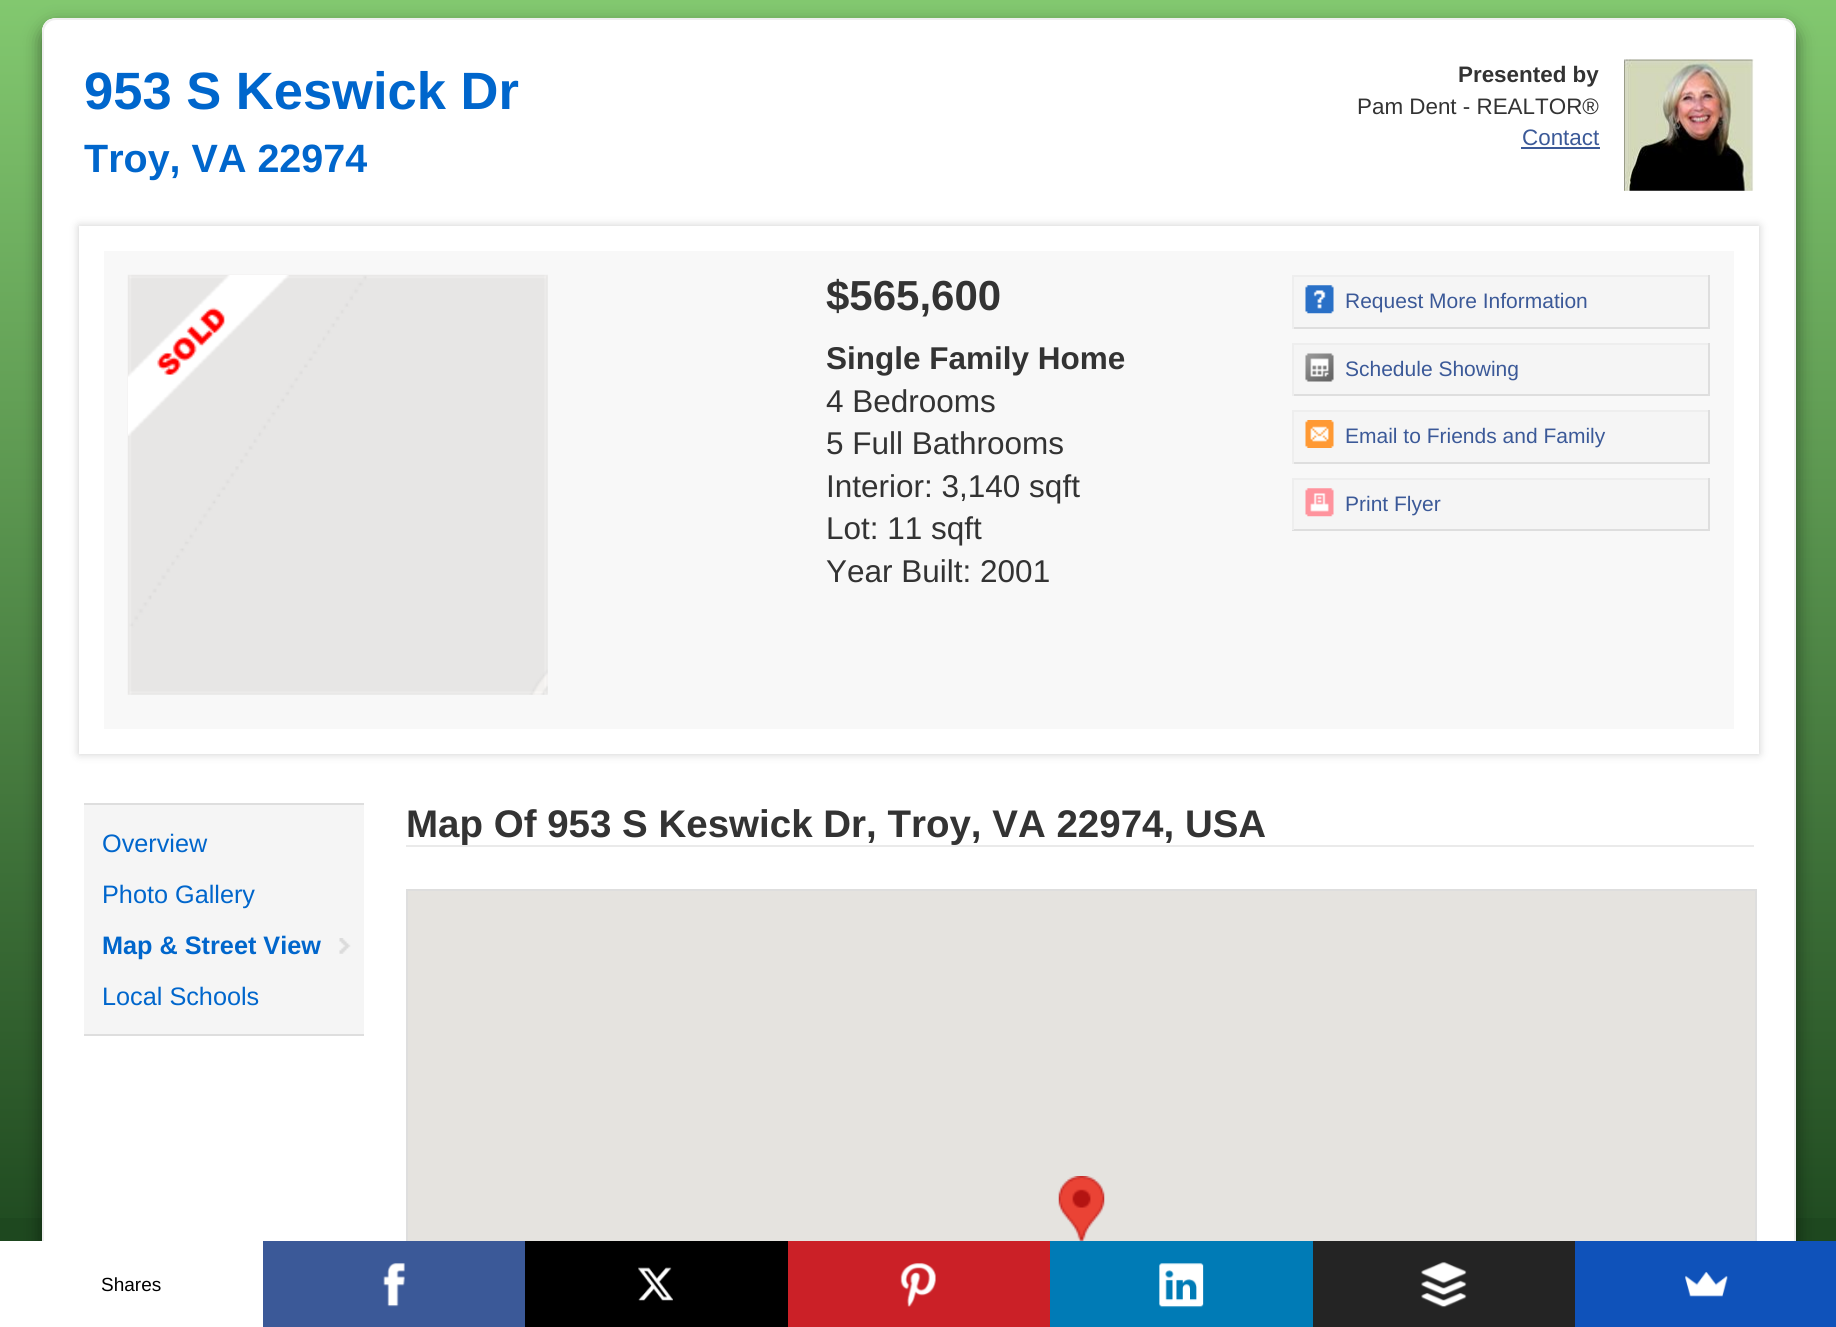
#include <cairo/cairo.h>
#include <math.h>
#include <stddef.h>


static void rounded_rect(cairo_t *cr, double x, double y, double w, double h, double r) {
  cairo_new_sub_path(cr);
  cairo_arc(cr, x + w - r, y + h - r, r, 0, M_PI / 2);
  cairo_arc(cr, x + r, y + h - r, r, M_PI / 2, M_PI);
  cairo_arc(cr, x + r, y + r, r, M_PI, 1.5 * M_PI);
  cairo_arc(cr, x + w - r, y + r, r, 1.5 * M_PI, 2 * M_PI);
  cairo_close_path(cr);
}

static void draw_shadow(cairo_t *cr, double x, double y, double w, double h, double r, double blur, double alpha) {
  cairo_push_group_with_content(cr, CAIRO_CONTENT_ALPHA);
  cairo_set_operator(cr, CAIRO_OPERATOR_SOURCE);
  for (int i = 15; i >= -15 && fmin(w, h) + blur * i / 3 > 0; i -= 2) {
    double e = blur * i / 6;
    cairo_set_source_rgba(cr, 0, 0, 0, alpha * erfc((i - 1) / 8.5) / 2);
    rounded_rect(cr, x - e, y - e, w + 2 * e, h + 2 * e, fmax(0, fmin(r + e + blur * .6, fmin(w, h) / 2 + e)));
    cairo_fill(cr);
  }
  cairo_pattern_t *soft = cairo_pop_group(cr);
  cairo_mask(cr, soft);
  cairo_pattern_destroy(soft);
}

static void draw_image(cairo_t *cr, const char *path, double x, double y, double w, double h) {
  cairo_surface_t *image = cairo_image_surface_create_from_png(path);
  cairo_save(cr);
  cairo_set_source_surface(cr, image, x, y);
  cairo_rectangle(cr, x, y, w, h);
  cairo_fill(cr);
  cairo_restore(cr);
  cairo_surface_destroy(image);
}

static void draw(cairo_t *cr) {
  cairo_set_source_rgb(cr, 30 / 255.0, 72 / 255.0, 31 / 255.0);
  cairo_paint(cr);
  draw_image(cr, "images/1.png", 0, 0, 1836, 1218);
  cairo_set_source_rgb(cr, 0, 0, 0);
  draw_shadow(cr, 42, 26, 1754, 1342, 14, 9, 0.5);
  cairo_set_source_rgb(cr, 1, 1, 1);
  cairo_new_path(cr);
  cairo_move_to(cr, 56, 18);
  cairo_line_to(cr, 1782, 18);
  cairo_curve_to(cr, 1789.5, 18, 1796, 24.5, 1796, 32);
  cairo_line_to(cr, 1796, 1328);
  cairo_line_to(cr, 42, 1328);
  cairo_line_to(cr, 42, 32);
  cairo_curve_to(cr, 42, 24.5, 48.5, 18, 56, 18);
  cairo_close_path(cr);
  cairo_fill(cr);
  draw_image(cr, "images/2.png", 42, 19, 1754, 13);
  rounded_rect(cr, 43, 19, 1752, 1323, 13);
  cairo_set_source_rgb(cr, 239 / 255.0, 239 / 255.0, 239 / 255.0);
  cairo_stroke(cr);
  cairo_set_source_rgb(cr, 59 / 255.0, 89 / 255.0, 152 / 255.0);
  cairo_rectangle(cr, 1521, 147, 79, 2);
  cairo_fill(cr);
  draw_image(cr, "images/3.png", 1624, 59, 130, 132);
  cairo_set_source_rgb(cr, 0, 0, 0);
  draw_shadow(cr, 79, 226, 1680, 528, 0, 4.5, 0.2);
  cairo_set_source_rgb(cr, 248 / 255.0, 248 / 255.0, 248 / 255.0);
  cairo_rectangle(cr, 91.5, 238.5, 1655, 503);
  cairo_fill_preserve(cr);
  cairo_set_source_rgb(cr, 1, 1, 1);
  cairo_set_line_width(cr, 25);
  cairo_stroke(cr);
  draw_image(cr, "images/4.png", 127, 274, 421, 421);
  draw_image(cr, "images/5.png", 128, 275, 161, 161);
  cairo_set_source_rgb(cr, 245 / 255.0, 245 / 255.0, 245 / 255.0);
  cairo_rectangle(cr, 1294, 277, 414, 50);
  cairo_fill(cr);
  cairo_set_source_rgb(cr, 238 / 255.0, 238 / 255.0, 238 / 255.0);
  cairo_rectangle(cr, 1292, 275, 418, 2);
  cairo_fill(cr);
  cairo_set_source_rgb(cr, 222 / 255.0, 222 / 255.0, 222 / 255.0);
  cairo_rectangle(cr, 1708, 275, 2, 54);
  cairo_fill(cr);
  cairo_rectangle(cr, 1292, 327, 418, 2);
  cairo_fill(cr);
  cairo_set_source_rgb(cr, 238 / 255.0, 238 / 255.0, 238 / 255.0);
  cairo_rectangle(cr, 1292, 275, 2, 54);
  cairo_fill(cr);
  draw_image(cr, "images/6.png", 1305, 285, 29, 29);
  cairo_set_source_rgb(cr, 245 / 255.0, 245 / 255.0, 245 / 255.0);
  cairo_rectangle(cr, 1294, 345, 414, 49);
  cairo_fill(cr);
  cairo_set_source_rgb(cr, 238 / 255.0, 238 / 255.0, 238 / 255.0);
  cairo_rectangle(cr, 1292, 343, 418, 2);
  cairo_fill(cr);
  cairo_set_source_rgb(cr, 222 / 255.0, 222 / 255.0, 222 / 255.0);
  cairo_rectangle(cr, 1708, 343, 2, 53);
  cairo_fill(cr);
  cairo_rectangle(cr, 1292, 394, 418, 2);
  cairo_fill(cr);
  cairo_set_source_rgb(cr, 238 / 255.0, 238 / 255.0, 238 / 255.0);
  cairo_rectangle(cr, 1292, 343, 2, 53);
  cairo_fill(cr);
  draw_image(cr, "images/7.png", 1305, 353, 29, 29);
  cairo_set_source_rgb(cr, 245 / 255.0, 245 / 255.0, 245 / 255.0);
  cairo_rectangle(cr, 1294, 412, 414, 50);
  cairo_fill(cr);
  cairo_set_source_rgb(cr, 238 / 255.0, 238 / 255.0, 238 / 255.0);
  cairo_rectangle(cr, 1292, 410, 418, 2);
  cairo_fill(cr);
  cairo_set_source_rgb(cr, 222 / 255.0, 222 / 255.0, 222 / 255.0);
  cairo_rectangle(cr, 1708, 410, 2, 54);
  cairo_fill(cr);
  cairo_rectangle(cr, 1292, 462, 418, 2);
  cairo_fill(cr);
  cairo_set_source_rgb(cr, 238 / 255.0, 238 / 255.0, 238 / 255.0);
  cairo_rectangle(cr, 1292, 410, 2, 54);
  cairo_fill(cr);
  draw_image(cr, "images/8.png", 1305, 420, 29, 28);
  cairo_set_source_rgb(cr, 245 / 255.0, 245 / 255.0, 245 / 255.0);
  cairo_rectangle(cr, 1294, 480, 414, 49);
  cairo_fill(cr);
  cairo_set_source_rgb(cr, 238 / 255.0, 238 / 255.0, 238 / 255.0);
  cairo_rectangle(cr, 1292, 478, 418, 2);
  cairo_fill(cr);
  cairo_set_source_rgb(cr, 222 / 255.0, 222 / 255.0, 222 / 255.0);
  cairo_rectangle(cr, 1708, 478, 2, 52);
  cairo_fill(cr);
  cairo_rectangle(cr, 1292, 529, 418, 2);
  cairo_fill(cr);
  cairo_set_source_rgb(cr, 238 / 255.0, 238 / 255.0, 238 / 255.0);
  cairo_rectangle(cr, 1292, 478, 2, 52);
  cairo_fill(cr);
  draw_image(cr, "images/9.png", 1305, 488, 29, 29);
  cairo_set_source_rgb(cr, 234 / 255.0, 234 / 255.0, 234 / 255.0);
  cairo_rectangle(cr, 406, 845, 1348, 2);
  cairo_fill(cr);
  cairo_rectangle(cr, 407, 890, 1349, 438);
  cairo_set_source_rgb(cr, 222 / 255.0, 222 / 255.0, 222 / 255.0);
  cairo_set_line_width(cr, 2);
  cairo_stroke(cr);
  cairo_set_source_rgb(cr, 229 / 255.0, 227 / 255.0, 223 / 255.0);
  cairo_rectangle(cr, 408, 891, 1347, 350);
  cairo_fill(cr);
  draw_image(cr, "images/10.png", 1058, 1176, 47, 65);
  cairo_set_source_rgb(cr, 245 / 255.0, 245 / 255.0, 245 / 255.0);
  cairo_rectangle(cr, 84, 805, 280, 229);
  cairo_fill(cr);
  cairo_set_source_rgb(cr, 222 / 255.0, 222 / 255.0, 222 / 255.0);
  cairo_rectangle(cr, 84, 803, 280, 2);
  cairo_fill(cr);
  cairo_rectangle(cr, 84, 1034, 280, 2);
  cairo_fill(cr);
  draw_image(cr, "images/11.png", 339, 938, 12, 16);
  cairo_set_source_rgb(cr, 1, 1, 1);
  cairo_rectangle(cr, 0, 1241, 44, 86);
  cairo_fill(cr);
  cairo_set_source_rgb(cr, 59 / 255.0, 89 / 255.0, 152 / 255.0);
  cairo_rectangle(cr, 263, 1241, 262, 86);
  cairo_fill(cr);
  draw_image(cr, "images/12.png", 383, 1263, 22, 44);
  cairo_set_source_rgb(cr, 0, 0, 0);
  cairo_rectangle(cr, 525, 1241, 263, 86);
  cairo_fill(cr);
  draw_image(cr, "images/13.png", 638, 1267, 35, 34);
  cairo_set_source_rgb(cr, 203 / 255.0, 32 / 255.0, 39 / 255.0);
  cairo_rectangle(cr, 788, 1241, 262, 86);
  cairo_fill(cr);
  draw_image(cr, "images/14.png", 900, 1263, 36, 44);
  cairo_set_source_rgb(cr, 0, 123 / 255.0, 182 / 255.0);
  cairo_rectangle(cr, 1050, 1241, 263, 86);
  cairo_fill(cr);
  draw_image(cr, "images/15.png", 1159, 1263, 45, 45);
  cairo_set_source_rgb(cr, 36 / 255.0, 36 / 255.0, 36 / 255.0);
  cairo_rectangle(cr, 1313, 1241, 262, 86);
  cairo_fill(cr);
  draw_image(cr, "images/16.png", 1421, 1262, 46, 46);
  cairo_set_source_rgb(cr, 15 / 255.0, 82 / 255.0, 186 / 255.0);
  cairo_rectangle(cr, 1575, 1241, 261, 86);
  cairo_fill(cr);
  draw_image(cr, "images/17.png", 1685, 1272, 43, 25);
  cairo_select_font_face(cr, "Liberation Sans", CAIRO_FONT_SLANT_NORMAL, CAIRO_FONT_WEIGHT_BOLD);
  cairo_set_font_size(cr, 52.5);
  cairo_set_source_rgb(cr, 0, 102 / 255.0, 204 / 255.0);
  cairo_move_to(cr, 84, 109);
  cairo_show_text(cr, "953 S Keswick Dr");
  cairo_set_font_size(cr, 39.5);
  cairo_move_to(cr, 84, 172);
  cairo_show_text(cr, "Troy, VA 22974");
  cairo_set_font_size(cr, 22.4);
  cairo_set_source_rgb(cr, 51 / 255.0, 51 / 255.0, 51 / 255.0);
  cairo_move_to(cr, 1458, 82);
  cairo_show_text(cr, "Presented by");
  cairo_select_font_face(cr, "Liberation Sans", CAIRO_FONT_SLANT_NORMAL, CAIRO_FONT_WEIGHT_NORMAL);
  cairo_move_to(cr, 1357, 114);
  cairo_show_text(cr, "Pam Dent - REALTOR®");
  cairo_set_source_rgb(cr, 59 / 255.0, 89 / 255.0, 152 / 255.0);
  cairo_move_to(cr, 1522, 145);
  cairo_show_text(cr, "Contact");
  cairo_select_font_face(cr, "Liberation Sans", CAIRO_FONT_SLANT_NORMAL, CAIRO_FONT_WEIGHT_BOLD);
  cairo_set_font_size(cr, 42);
  cairo_set_source_rgb(cr, 51 / 255.0, 51 / 255.0, 51 / 255.0);
  cairo_move_to(cr, 826, 310);
  cairo_show_text(cr, "$565,600");
  cairo_set_font_size(cr, 31.5);
  cairo_move_to(cr, 826, 369);
  cairo_show_text(cr, "Single Family Home");
  cairo_select_font_face(cr, "Liberation Sans", CAIRO_FONT_SLANT_NORMAL, CAIRO_FONT_WEIGHT_NORMAL);
  cairo_move_to(cr, 826, 412);
  cairo_show_text(cr, "4 Bedrooms");
  cairo_move_to(cr, 826, 454);
  cairo_show_text(cr, "5 Full Bathrooms");
  cairo_move_to(cr, 826, 497);
  cairo_show_text(cr, "Interior: 3,140 sqft");
  cairo_move_to(cr, 826, 539);
  cairo_show_text(cr, "Lot: 11 sqft");
  cairo_move_to(cr, 826, 582);
  cairo_show_text(cr, "Year Built: 2001");
  cairo_set_font_size(cr, 21);
  cairo_set_source_rgb(cr, 59 / 255.0, 89 / 255.0, 152 / 255.0);
  cairo_move_to(cr, 1345, 308);
  cairo_show_text(cr, "Request More Information");
  cairo_move_to(cr, 1345, 376);
  cairo_show_text(cr, "Schedule Showing");
  cairo_move_to(cr, 1345, 443);
  cairo_show_text(cr, "Email to Friends and Family");
  cairo_move_to(cr, 1345, 511);
  cairo_show_text(cr, "Print Flyer");
  cairo_select_font_face(cr, "Liberation Sans", CAIRO_FONT_SLANT_NORMAL, CAIRO_FONT_WEIGHT_BOLD);
  cairo_set_font_size(cr, 38.5);
  cairo_set_source_rgb(cr, 51 / 255.0, 51 / 255.0, 51 / 255.0);
  cairo_move_to(cr, 406, 837);
  cairo_show_text(cr, "Map Of 953 S Keswick Dr, Troy, VA 22974, USA");
  cairo_select_font_face(cr, "Liberation Sans", CAIRO_FONT_SLANT_NORMAL, CAIRO_FONT_WEIGHT_NORMAL);
  cairo_set_font_size(cr, 25.25);
  cairo_set_source_rgb(cr, 0, 102 / 255.0, 204 / 255.0);
  cairo_move_to(cr, 102, 852);
  cairo_show_text(cr, "Overview");
  cairo_move_to(cr, 102, 903);
  cairo_show_text(cr, "Photo Gallery");
  cairo_select_font_face(cr, "Liberation Sans", CAIRO_FONT_SLANT_NORMAL, CAIRO_FONT_WEIGHT_BOLD);
  cairo_move_to(cr, 102, 954);
  cairo_show_text(cr, "Map & Street View");
  cairo_select_font_face(cr, "Liberation Sans", CAIRO_FONT_SLANT_NORMAL, CAIRO_FONT_WEIGHT_NORMAL);
  cairo_move_to(cr, 102, 1005);
  cairo_show_text(cr, "Local Schools");
  cairo_set_font_size(cr, 19);
  cairo_set_source_rgb(cr, 0, 0, 0);
  cairo_move_to(cr, 101, 1291);
  cairo_show_text(cr, "Shares");
}

int main(void) {
  cairo_surface_t *surface = cairo_image_surface_create(CAIRO_FORMAT_RGB24, 1836, 1327);
  cairo_t *cr = cairo_create(surface);
  cairo_font_options_t *options = cairo_font_options_create();
  cairo_font_options_set_hint_metrics(options, CAIRO_HINT_METRICS_OFF);
  cairo_font_options_set_hint_style(options, CAIRO_HINT_STYLE_NONE);
  cairo_set_font_options(cr, options);
  cairo_set_miter_limit(cr, 4);
  draw(cr);
  cairo_surface_write_to_png(surface, "out.png");
  cairo_font_options_destroy(options);
  cairo_destroy(cr);
  cairo_surface_destroy(surface);
  return 0;
}
